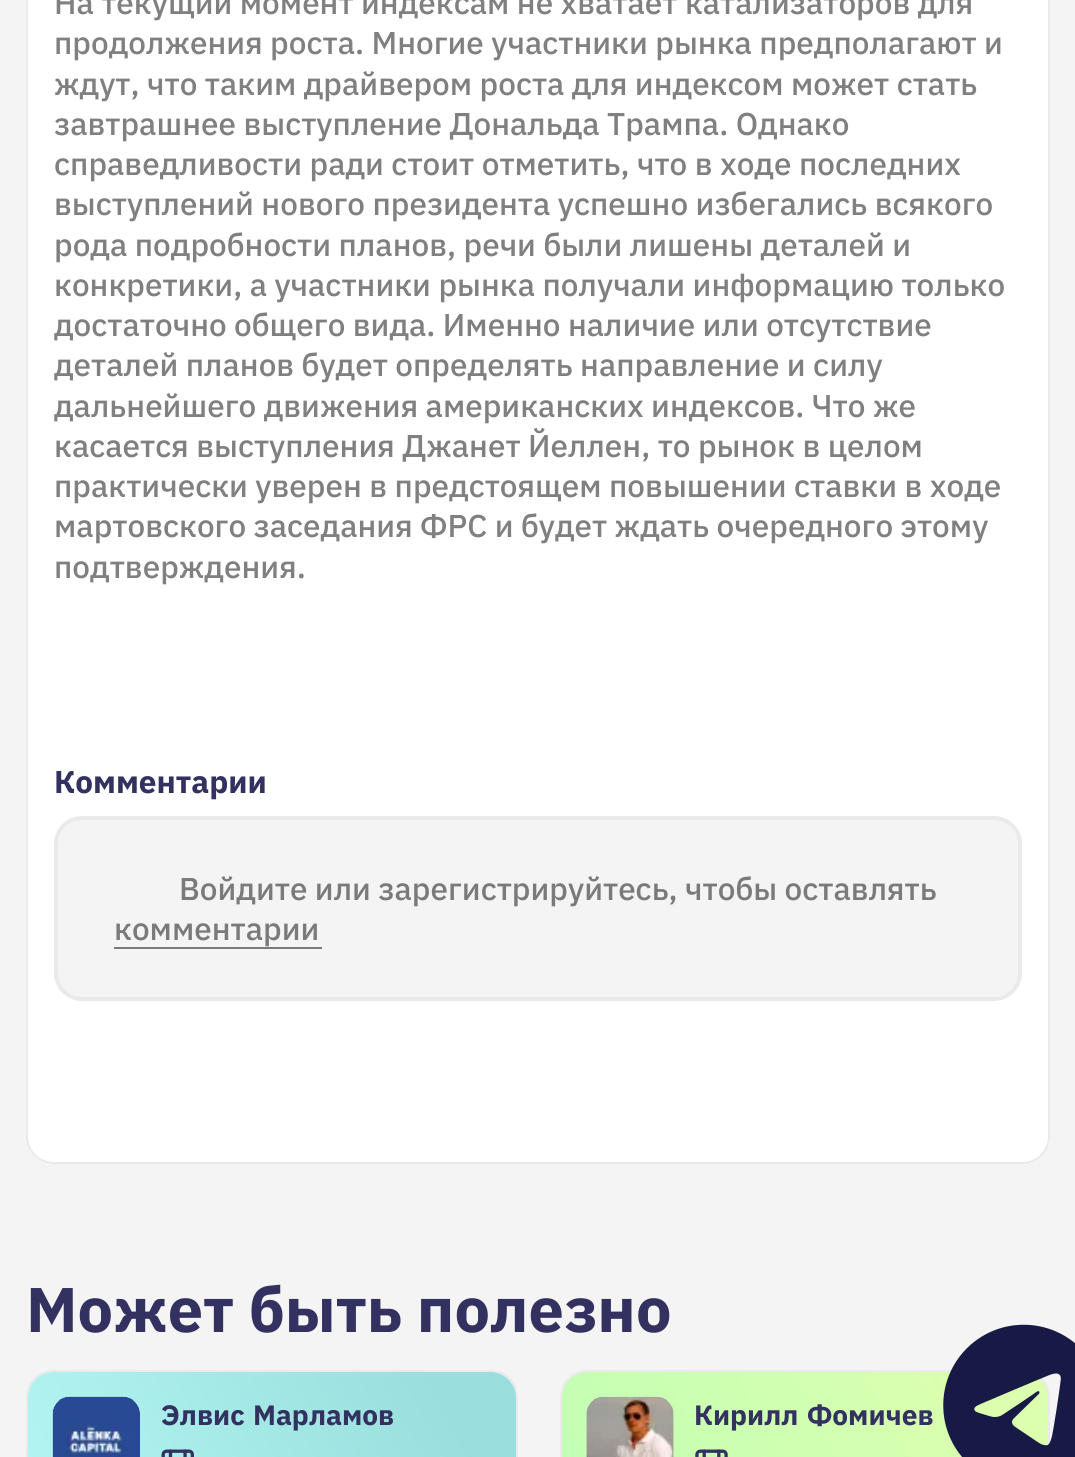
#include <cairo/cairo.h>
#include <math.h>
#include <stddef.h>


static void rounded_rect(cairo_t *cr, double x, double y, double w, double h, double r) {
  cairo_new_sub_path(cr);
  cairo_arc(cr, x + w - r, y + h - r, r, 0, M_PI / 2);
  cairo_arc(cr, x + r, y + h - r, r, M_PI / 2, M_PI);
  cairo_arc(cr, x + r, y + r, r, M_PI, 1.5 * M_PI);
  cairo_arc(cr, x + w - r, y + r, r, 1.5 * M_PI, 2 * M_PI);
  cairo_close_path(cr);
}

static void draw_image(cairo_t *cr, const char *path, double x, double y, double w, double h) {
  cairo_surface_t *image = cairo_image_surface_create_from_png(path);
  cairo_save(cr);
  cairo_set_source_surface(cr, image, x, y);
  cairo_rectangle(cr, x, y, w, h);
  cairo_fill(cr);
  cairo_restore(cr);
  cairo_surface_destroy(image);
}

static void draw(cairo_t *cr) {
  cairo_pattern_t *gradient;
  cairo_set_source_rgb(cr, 244 / 255.0, 244 / 255.0, 244 / 255.0);
  cairo_paint(cr);
  cairo_set_source_rgb(cr, 1, 1, 1);
  cairo_new_path(cr);
  cairo_move_to(cr, 27, -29);
  cairo_line_to(cr, 1049, -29);
  cairo_line_to(cr, 1049, 1136);
  cairo_curve_to(cr, 1049, 1151, 1037, 1163, 1022, 1163);
  cairo_line_to(cr, 54, 1163);
  cairo_curve_to(cr, 39, 1163, 27, 1151, 27, 1136);
  cairo_close_path(cr);
  cairo_fill_preserve(cr);
  cairo_set_source_rgb(cr, 234 / 255.0, 234 / 255.0, 234 / 255.0);
  cairo_stroke(cr);
  cairo_set_source_rgb(cr, 244 / 255.0, 244 / 255.0, 244 / 255.0);
  rounded_rect(cr, 56, 818, 964, 181, 26);
  cairo_fill_preserve(cr);
  cairo_set_source_rgb(cr, 234 / 255.0, 234 / 255.0, 234 / 255.0);
  cairo_set_line_width(cr, 4);
  cairo_stroke(cr);
  cairo_set_source_rgb(cr, 122 / 255.0, 122 / 255.0, 122 / 255.0);
  cairo_rectangle(cr, 114, 947, 208, 2);
  cairo_fill(cr);
  cairo_save(cr);
  rounded_rect(cr, 26, 1370, 492, 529, 28);
  cairo_clip(cr);
  gradient = cairo_pattern_create_linear(571, 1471, -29, 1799);
  cairo_pattern_add_color_stop_rgba(gradient, 0.11, 154 / 255.0, 223 / 255.0, 221 / 255.0, 1);
  cairo_pattern_add_color_stop_rgba(gradient, 1, 190 / 255.0, 1, 253 / 255.0, 1);
  cairo_set_source(cr, gradient);
  cairo_pattern_destroy(gradient);
  cairo_rectangle(cr, 28, 1372, 488, 85);
  cairo_fill(cr);
  cairo_restore(cr);
  rounded_rect(cr, 27, 1371, 490, 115, 27);
  cairo_set_source_rgb(cr, 234 / 255.0, 234 / 255.0, 234 / 255.0);
  cairo_set_line_width(cr, 2);
  cairo_stroke(cr);
  draw_image(cr, "images/1.png", 52, 1396, 88, 61);
  draw_image(cr, "images/2.png", 161, 1449, 33, 8);
  cairo_save(cr);
  rounded_rect(cr, 560, 1370, 490, 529, 28);
  cairo_clip(cr);
  gradient = cairo_pattern_create_linear(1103, 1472, 505, 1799);
  cairo_pattern_add_color_stop_rgba(gradient, 0.11, 219 / 255.0, 1, 174 / 255.0, 1);
  cairo_pattern_add_color_stop_rgba(gradient, 1, 181 / 255.0, 1, 184 / 255.0, 1);
  cairo_set_source(cr, gradient);
  cairo_pattern_destroy(gradient);
  cairo_rectangle(cr, 562, 1372, 486, 85);
  cairo_fill(cr);
  cairo_restore(cr);
  rounded_rect(cr, 561, 1371, 488, 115, 27);
  cairo_stroke(cr);
  draw_image(cr, "images/3.png", 586, 1396, 88, 61);
  draw_image(cr, "images/4.png", 695, 1449, 33, 8);
  draw_image(cr, "images/5.png", 943, 1324, 132, 133);
  cairo_select_font_face(cr, "IBM Plex Sans Medium", CAIRO_FONT_SLANT_NORMAL, CAIRO_FONT_WEIGHT_NORMAL);
  cairo_set_font_size(cr, 31.5);
  cairo_set_source_rgb(cr, 128 / 255.0, 128 / 255.0, 128 / 255.0);
  cairo_move_to(cr, 54, 14);
  cairo_show_text(cr, "На текущий момент индексам не хватает катализаторов для");
  cairo_move_to(cr, 54, 54);
  cairo_show_text(cr, "продолжения роста. Многие участники рынка предполагают и");
  cairo_move_to(cr, 54, 95);
  cairo_show_text(cr, "ждут, что таким драйвером роста для индексом может стать");
  cairo_move_to(cr, 54, 135);
  cairo_show_text(cr, "завтрашнее выступление Дональда Трампа. Однако");
  cairo_move_to(cr, 54, 175);
  cairo_show_text(cr, "справедливости ради стоит отметить, что в ходе последних");
  cairo_move_to(cr, 54, 215);
  cairo_show_text(cr, "выступлений нового президента успешно избегались всякого");
  cairo_move_to(cr, 54, 256);
  cairo_show_text(cr, "рода подробности планов, речи были лишены деталей и");
  cairo_move_to(cr, 54, 296);
  cairo_show_text(cr, "конкретики, а участники рынка получали информацию только");
  cairo_move_to(cr, 54, 336);
  cairo_show_text(cr, "достаточно общего вида. Именно наличие или отсутствие");
  cairo_move_to(cr, 54, 376);
  cairo_show_text(cr, "деталей планов будет определять направление и силу");
  cairo_move_to(cr, 54, 417);
  cairo_show_text(cr, "дальнейшего движения американских индексов. Что же");
  cairo_move_to(cr, 54, 457);
  cairo_show_text(cr, "касается выступления Джанет Йеллен, то рынок в целом");
  cairo_move_to(cr, 54, 497);
  cairo_show_text(cr, "практически уверен в предстоящем повышении ставки в ходе");
  cairo_move_to(cr, 54, 537);
  cairo_show_text(cr, "мартовского заседания ФРС и будет ждать очередного этому");
  cairo_move_to(cr, 54, 578);
  cairo_show_text(cr, "подтверждения.");
  cairo_select_font_face(cr, "IBM Plex Sans", CAIRO_FONT_SLANT_NORMAL, CAIRO_FONT_WEIGHT_BOLD);
  cairo_set_source_rgb(cr, 50 / 255.0, 49 / 255.0, 96 / 255.0);
  cairo_move_to(cr, 54, 793);
  cairo_show_text(cr, "Комментарии");
  cairo_select_font_face(cr, "IBM Plex Sans Medium", CAIRO_FONT_SLANT_NORMAL, CAIRO_FONT_WEIGHT_NORMAL);
  cairo_set_source_rgb(cr, 122 / 255.0, 122 / 255.0, 122 / 255.0);
  cairo_move_to(cr, 179, 900);
  cairo_show_text(cr, "Войдите или зарегистрируйтесь, чтобы оставлять");
  cairo_move_to(cr, 114, 940);
  cairo_show_text(cr, "комментарии");
  cairo_select_font_face(cr, "IBM Plex Sans", CAIRO_FONT_SLANT_NORMAL, CAIRO_FONT_WEIGHT_BOLD);
  cairo_set_font_size(cr, 63);
  cairo_set_source_rgb(cr, 50 / 255.0, 49 / 255.0, 96 / 255.0);
  cairo_move_to(cr, 26, 1332);
  cairo_show_text(cr, "Может быть полезно");
  cairo_set_font_size(cr, 28);
  cairo_move_to(cr, 161, 1425);
  cairo_show_text(cr, "Элвис");
  cairo_move_to(cr, 253, 1425);
  cairo_show_text(cr, "Марламов");
  cairo_move_to(cr, 694, 1425);
  cairo_show_text(cr, "Кирилл");
  cairo_move_to(cr, 807, 1425);
  cairo_show_text(cr, "Фомичев");
}

int main(void) {
  cairo_surface_t *surface = cairo_image_surface_create(CAIRO_FORMAT_RGB24, 1075, 1457);
  cairo_t *cr = cairo_create(surface);
  cairo_font_options_t *options = cairo_font_options_create();
  cairo_font_options_set_hint_metrics(options, CAIRO_HINT_METRICS_OFF);
  cairo_font_options_set_hint_style(options, CAIRO_HINT_STYLE_NONE);
  cairo_set_font_options(cr, options);
  cairo_set_miter_limit(cr, 4);
  draw(cr);
  cairo_surface_write_to_png(surface, "out.png");
  cairo_font_options_destroy(options);
  cairo_destroy(cr);
  cairo_surface_destroy(surface);
  return 0;
}
